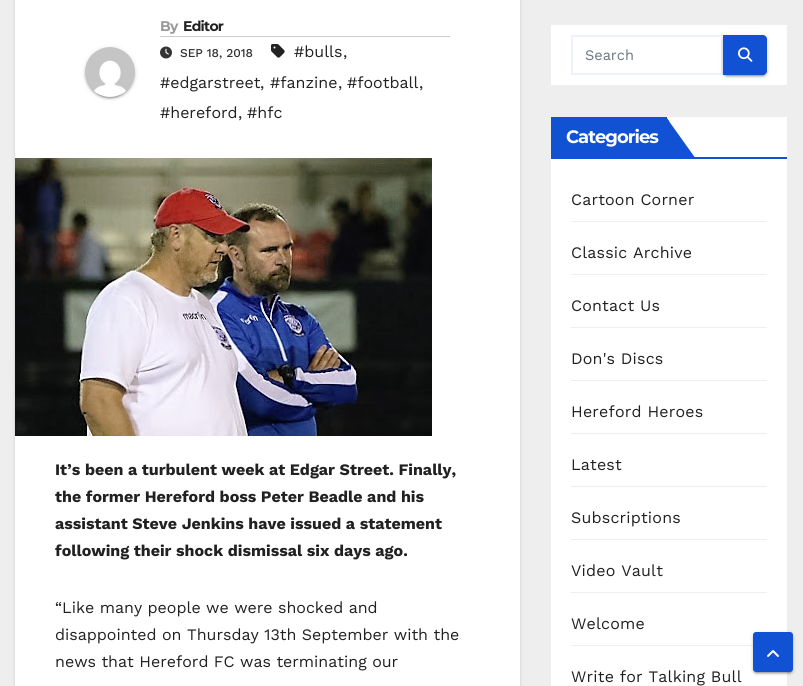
#include <cairo/cairo.h>
#include <math.h>
#include <stddef.h>


static void draw_spaced(cairo_t *cr, double x, double y, const char *s, double letter, double word) {
  cairo_move_to(cr, x, y);
  while (*s) {
    char ch[5] = {0};
    int n = 0;
    do ch[n++] = *s++; while ((*s & 0xC0) == 0x80);
    cairo_show_text(cr, ch);
    cairo_rel_move_to(cr, letter + word * (*ch == ' '), 0);
  }
}

static void rounded_rect(cairo_t *cr, double x, double y, double w, double h, double r) {
  cairo_new_sub_path(cr);
  cairo_arc(cr, x + w - r, y + h - r, r, 0, M_PI / 2);
  cairo_arc(cr, x + r, y + h - r, r, M_PI / 2, M_PI);
  cairo_arc(cr, x + r, y + r, r, M_PI, 1.5 * M_PI);
  cairo_arc(cr, x + w - r, y + r, r, 1.5 * M_PI, 2 * M_PI);
  cairo_close_path(cr);
}

static void draw_shadow(cairo_t *cr, double x, double y, double w, double h, double r, double blur, double alpha) {
  cairo_push_group_with_content(cr, CAIRO_CONTENT_ALPHA);
  cairo_set_operator(cr, CAIRO_OPERATOR_SOURCE);
  for (int i = 15; i >= -15 && fmin(w, h) + blur * i / 3 > 0; i -= 2) {
    double e = blur * i / 6;
    cairo_set_source_rgba(cr, 0, 0, 0, alpha * erfc((i - 1) / 8.5) / 2);
    rounded_rect(cr, x - e, y - e, w + 2 * e, h + 2 * e, fmax(0, fmin(r + e + blur * .6, fmin(w, h) / 2 + e)));
    cairo_fill(cr);
  }
  cairo_pattern_t *soft = cairo_pop_group(cr);
  cairo_mask(cr, soft);
  cairo_pattern_destroy(soft);
}

static void draw_image(cairo_t *cr, const char *path, double x, double y, double w, double h) {
  cairo_surface_t *image = cairo_image_surface_create_from_png(path);
  cairo_save(cr);
  cairo_set_source_surface(cr, image, x, y);
  cairo_rectangle(cr, x, y, w, h);
  cairo_fill(cr);
  cairo_restore(cr);
  cairo_surface_destroy(image);
}

static void draw(cairo_t *cr) {
  cairo_set_source_rgb(cr, 238 / 255.0, 238 / 255.0, 238 / 255.0);
  cairo_paint(cr);
  cairo_set_source_rgb(cr, 0, 0, 0);
  draw_shadow(cr, 15, -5, 505, 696, 0, 1.5, 0.15);
  cairo_set_source_rgb(cr, 1, 1, 1);
  cairo_rectangle(cr, 15, 0, 505, 686);
  cairo_fill(cr);
  cairo_set_source_rgb(cr, 0, 0, 0);
  draw_shadow(cr, 85, 48, 50, 50, 25, 2.5, 0.12);
  draw_shadow(cr, 87, 52, 46, 46, 23, 0.5, 0.2);
  draw_shadow(cr, 85, 49, 50, 50, 25, 1, 0.14);
  draw_image(cr, "images/1.png", 85, 47, 50, 50);
  cairo_set_source_rgb(cr, 204 / 255.0, 204 / 255.0, 204 / 255.0);
  cairo_rectangle(cr, 160, 36, 290, 1);
  cairo_fill(cr);
  draw_image(cr, "images/2.png", 271, 44, 14, 14);
  draw_image(cr, "images/3.png", 160, 46, 12, 13);
  draw_image(cr, "images/4.png", 15, 158, 417, 278);
  cairo_set_source_rgb(cr, 1, 1, 1);
  cairo_rectangle(cr, 551, 25, 236, 60);
  cairo_fill(cr);
  cairo_rectangle(cr, 572, 36, 150, 38);
  cairo_set_source_rgb(cr, 238 / 255.0, 243 / 255.0, 251 / 255.0);
  cairo_stroke(cr);
  cairo_set_source_rgb(cr, 0, 0, 0);
  draw_shadow(cr, 723, 36, 44, 40, 4, 2.5, 0.12);
  draw_shadow(cr, 725, 40, 40, 36, 2, 0.5, 0.2);
  draw_shadow(cr, 723, 37, 44, 40, 4, 1, 0.14);
  cairo_set_source_rgb(cr, 17 / 255.0, 81 / 255.0, 211 / 255.0);
  cairo_new_path(cr);
  cairo_move_to(cr, 723, 35);
  cairo_line_to(cr, 763, 35);
  cairo_curve_to(cr, 765, 35, 767, 37, 767, 39);
  cairo_line_to(cr, 767, 71);
  cairo_curve_to(cr, 767, 73, 765, 75, 763, 75);
  cairo_line_to(cr, 723, 75);
  cairo_close_path(cr);
  cairo_fill(cr);
  draw_image(cr, "images/5.png", 738, 47, 15, 15);
  cairo_set_source_rgb(cr, 1, 1, 1);
  cairo_rectangle(cr, 551, 117, 236, 569);
  cairo_fill(cr);
  cairo_set_source_rgb(cr, 17 / 255.0, 81 / 255.0, 211 / 255.0);
  cairo_rectangle(cr, 551, 157, 236, 2);
  cairo_fill(cr);
  cairo_rectangle(cr, 551, 117, 116, 40);
  cairo_fill(cr);
  cairo_new_path(cr);
  cairo_move_to(cr, 666, 117);
  cairo_line_to(cr, 666, 159);
  cairo_line_to(cr, 696, 159);
  cairo_close_path(cr);
  cairo_fill(cr);
  cairo_new_path(cr);
  cairo_move_to(cr, 669, 121);
  cairo_line_to(cr, 669, 156);
  cairo_line_to(cr, 666, 159);
  cairo_line_to(cr, 666, 117);
  cairo_close_path(cr);
  cairo_fill(cr);
  cairo_set_source_rgb(cr, 238 / 255.0, 238 / 255.0, 238 / 255.0);
  cairo_rectangle(cr, 571, 221, 196, 1);
  cairo_fill(cr);
  cairo_rectangle(cr, 571, 274, 196, 1);
  cairo_fill(cr);
  cairo_rectangle(cr, 571, 327, 196, 1);
  cairo_fill(cr);
  cairo_rectangle(cr, 571, 380, 196, 1);
  cairo_fill(cr);
  cairo_rectangle(cr, 571, 433, 196, 1);
  cairo_fill(cr);
  cairo_rectangle(cr, 571, 486, 196, 1);
  cairo_fill(cr);
  cairo_rectangle(cr, 571, 539, 196, 1);
  cairo_fill(cr);
  cairo_rectangle(cr, 571, 592, 196, 1);
  cairo_fill(cr);
  cairo_rectangle(cr, 571, 645, 182, 1);
  cairo_fill(cr);
  cairo_set_source_rgb(cr, 0, 0, 0);
  draw_shadow(cr, 753, 633, 40, 40, 3, 2.5, 0.12);
  draw_shadow(cr, 755, 637, 36, 36, 1, 0.5, 0.2);
  draw_shadow(cr, 753, 634, 40, 40, 3, 1, 0.14);
  cairo_set_source_rgb(cr, 17 / 255.0, 81 / 255.0, 211 / 255.0);
  rounded_rect(cr, 754, 633, 38, 38, 2);
  cairo_fill_preserve(cr);
  cairo_stroke(cr);
  draw_image(cr, "images/6.png", 767, 650, 12, 7);
  cairo_select_font_face(cr, "Montserrat", CAIRO_FONT_SLANT_NORMAL, CAIRO_FONT_WEIGHT_BOLD);
  cairo_set_font_size(cr, 14);
  cairo_set_source_rgb(cr, 153 / 255.0, 153 / 255.0, 153 / 255.0);
  draw_spaced(cr, 160, 31, "By", -0.75, 0);
  cairo_set_source_rgb(cr, 33 / 255.0, 33 / 255.0, 33 / 255.0);
  draw_spaced(cr, 183, 31, "Editor", -0.75, 0);
  cairo_select_font_face(cr, "Work Sans", CAIRO_FONT_SLANT_NORMAL, CAIRO_FONT_WEIGHT_NORMAL);
  cairo_set_font_size(cr, 16);
  cairo_move_to(cr, 294, 57);
  cairo_show_text(cr, "#bulls");
  cairo_move_to(cr, 343, 57);
  cairo_show_text(cr, ",");
  cairo_move_to(cr, 160, 88);
  cairo_show_text(cr, "#edgarstreet");
  cairo_move_to(cr, 260, 88);
  cairo_show_text(cr, ",");
  cairo_move_to(cr, 270, 88);
  cairo_show_text(cr, "#fanzine");
  cairo_move_to(cr, 338, 88);
  cairo_show_text(cr, ",");
  cairo_move_to(cr, 347, 88);
  cairo_show_text(cr, "#football");
  cairo_move_to(cr, 419, 88);
  cairo_show_text(cr, ",");
  cairo_move_to(cr, 160, 118);
  cairo_show_text(cr, "#hereford");
  cairo_move_to(cr, 238, 118);
  cairo_show_text(cr, ",");
  cairo_move_to(cr, 247, 118);
  cairo_show_text(cr, "#hfc");
  cairo_select_font_face(cr, "Work Sans Medium", CAIRO_FONT_SLANT_NORMAL, CAIRO_FONT_WEIGHT_NORMAL);
  cairo_set_font_size(cr, 12);
  cairo_set_source_rgb(cr, 51 / 255.0, 51 / 255.0, 51 / 255.0);
  cairo_move_to(cr, 180, 57);
  cairo_show_text(cr, "SEP 18, 2018");
  cairo_select_font_face(cr, "Work Sans", CAIRO_FONT_SLANT_NORMAL, CAIRO_FONT_WEIGHT_BOLD);
  cairo_set_font_size(cr, 16);
  cairo_set_source_rgb(cr, 33 / 255.0, 33 / 255.0, 33 / 255.0);
  cairo_move_to(cr, 55, 475);
  cairo_show_text(cr, "It’s been a turbulent week at Edgar Street. Finally,");
  cairo_move_to(cr, 55, 502);
  cairo_show_text(cr, "the former Hereford boss Peter Beadle and his");
  cairo_move_to(cr, 55, 529);
  cairo_show_text(cr, "assistant Steve Jenkins have issued a statement");
  cairo_move_to(cr, 55, 556);
  cairo_show_text(cr, "following their shock dismissal six days ago.");
  cairo_select_font_face(cr, "Work Sans", CAIRO_FONT_SLANT_NORMAL, CAIRO_FONT_WEIGHT_NORMAL);
  cairo_move_to(cr, 55, 613);
  cairo_show_text(cr, "“Like many people we were shocked and");
  cairo_move_to(cr, 55, 640);
  cairo_show_text(cr, "disappointed on Thursday 13th September with the");
  cairo_move_to(cr, 55, 667);
  cairo_show_text(cr, "news that Hereford FC was terminating our");
  cairo_set_font_size(cr, 14.5);
  cairo_set_source_rgb(cr, 108 / 255.0, 117 / 255.0, 125 / 255.0);
  cairo_move_to(cr, 585, 60);
  cairo_show_text(cr, "Search");
  cairo_select_font_face(cr, "Montserrat", CAIRO_FONT_SLANT_NORMAL, CAIRO_FONT_WEIGHT_BOLD);
  cairo_set_font_size(cr, 18);
  cairo_set_source_rgb(cr, 1, 1, 1);
  draw_spaced(cr, 566, 143, "Categories", -1, 0);
  cairo_select_font_face(cr, "Work Sans", CAIRO_FONT_SLANT_NORMAL, CAIRO_FONT_WEIGHT_NORMAL);
  cairo_set_font_size(cr, 16);
  cairo_set_source_rgb(cr, 33 / 255.0, 33 / 255.0, 33 / 255.0);
  draw_spaced(cr, 571, 205, "Cartoon Corner", 0.2, 0);
  draw_spaced(cr, 571, 258, "Classic Archive", 0.2, 0);
  draw_spaced(cr, 571, 311, "Contact Us", 0.2, 0);
  draw_spaced(cr, 571, 364, "Don's Discs", 0.2, 0);
  draw_spaced(cr, 571, 417, "Hereford Heroes", 0.2, 0);
  draw_spaced(cr, 571, 470, "Latest", 0.2, 0);
  draw_spaced(cr, 571, 523, "Subscriptions", 0.2, 0);
  draw_spaced(cr, 571, 576, "Video Vault", 0.2, 0);
  draw_spaced(cr, 571, 629, "Welcome", 0.2, 0);
  draw_spaced(cr, 571, 682, "Write for Talking Bull", 0.2, 0);
}

int main(void) {
  cairo_surface_t *surface = cairo_image_surface_create(CAIRO_FORMAT_RGB24, 803, 686);
  cairo_t *cr = cairo_create(surface);
  cairo_font_options_t *options = cairo_font_options_create();
  cairo_font_options_set_hint_metrics(options, CAIRO_HINT_METRICS_OFF);
  cairo_font_options_set_hint_style(options, CAIRO_HINT_STYLE_NONE);
  cairo_set_font_options(cr, options);
  cairo_set_miter_limit(cr, 4);
  draw(cr);
  cairo_surface_write_to_png(surface, "out.png");
  cairo_font_options_destroy(options);
  cairo_destroy(cr);
  cairo_surface_destroy(surface);
  return 0;
}
